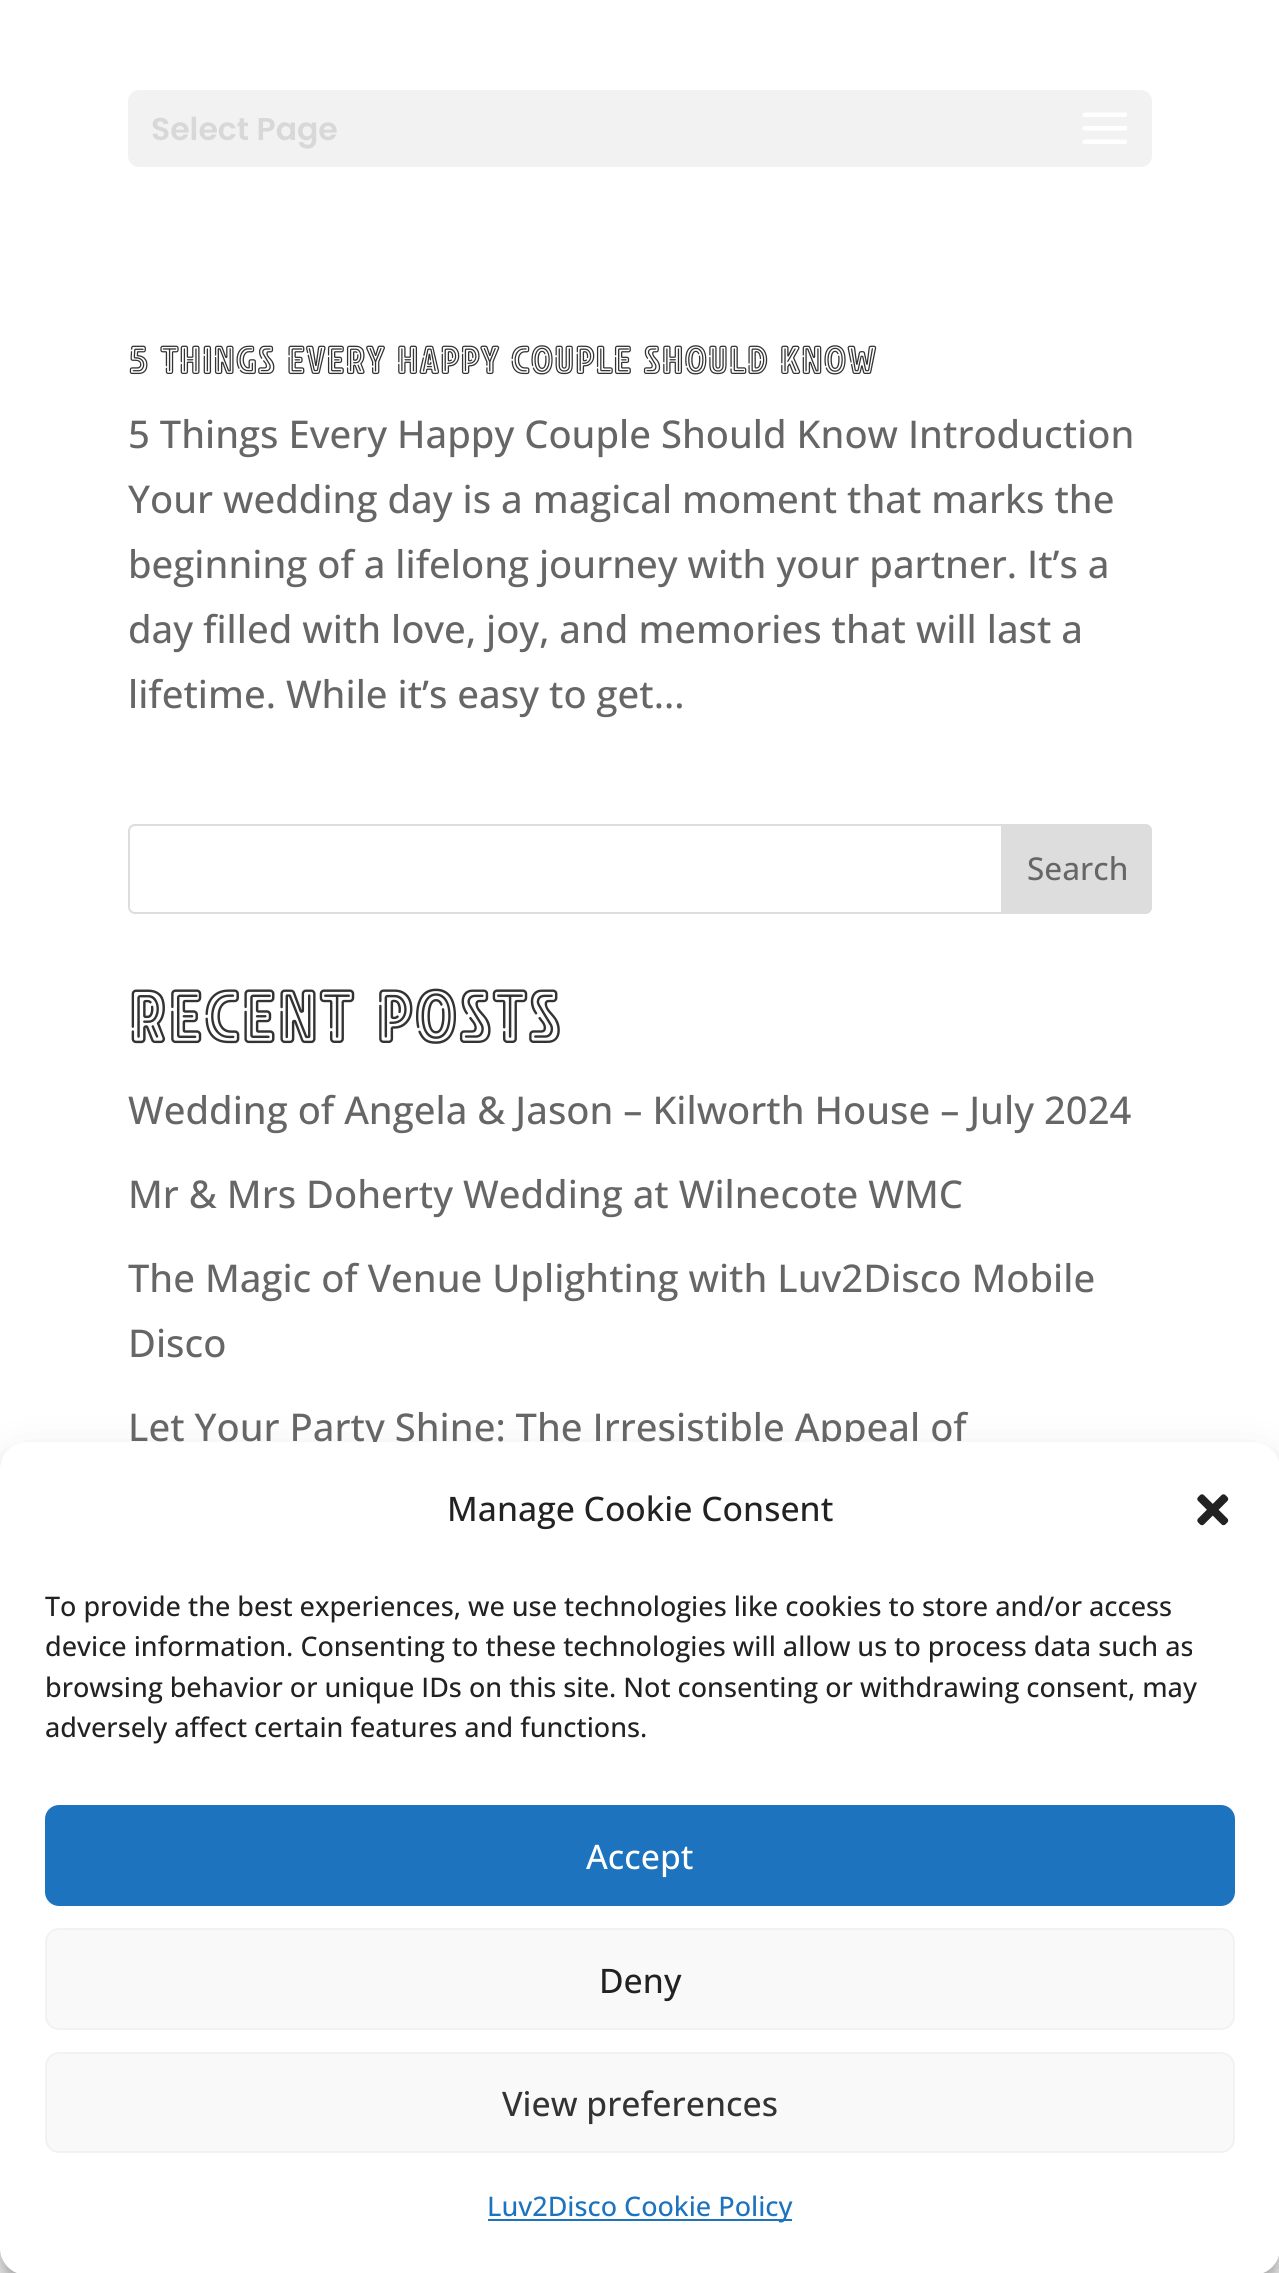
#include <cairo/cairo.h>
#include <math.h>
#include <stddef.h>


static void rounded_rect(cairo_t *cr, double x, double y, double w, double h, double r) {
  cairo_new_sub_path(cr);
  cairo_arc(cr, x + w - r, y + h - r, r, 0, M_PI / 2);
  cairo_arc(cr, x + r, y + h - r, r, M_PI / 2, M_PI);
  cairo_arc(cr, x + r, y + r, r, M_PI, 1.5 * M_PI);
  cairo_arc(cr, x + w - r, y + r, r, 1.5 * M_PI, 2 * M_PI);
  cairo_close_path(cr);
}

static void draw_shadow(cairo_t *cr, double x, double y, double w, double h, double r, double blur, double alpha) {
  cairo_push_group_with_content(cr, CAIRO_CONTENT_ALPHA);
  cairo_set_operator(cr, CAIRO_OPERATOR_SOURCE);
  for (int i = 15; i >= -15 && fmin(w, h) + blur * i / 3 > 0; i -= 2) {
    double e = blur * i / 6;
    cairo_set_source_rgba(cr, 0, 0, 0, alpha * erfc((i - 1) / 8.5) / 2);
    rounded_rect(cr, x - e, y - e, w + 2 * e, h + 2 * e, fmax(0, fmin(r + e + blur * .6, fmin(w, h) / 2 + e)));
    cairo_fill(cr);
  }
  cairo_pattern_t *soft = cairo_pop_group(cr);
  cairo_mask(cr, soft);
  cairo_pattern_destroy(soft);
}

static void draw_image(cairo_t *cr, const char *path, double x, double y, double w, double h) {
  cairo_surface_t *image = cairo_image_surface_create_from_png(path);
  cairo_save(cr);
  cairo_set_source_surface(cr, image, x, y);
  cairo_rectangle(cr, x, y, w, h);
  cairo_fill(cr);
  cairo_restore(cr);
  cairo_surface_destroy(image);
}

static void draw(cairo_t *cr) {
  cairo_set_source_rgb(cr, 1, 1, 1);
  cairo_paint(cr);
  cairo_set_source_rgb(cr, 242 / 255.0, 242 / 255.0, 242 / 255.0);
  rounded_rect(cr, 128, 90, 1024, 77, 11);
  cairo_fill(cr);
  draw_image(cr, "images/1.png", 1082, 112, 45, 32);
  rounded_rect(cr, 129, 825, 1022, 88, 6);
  cairo_set_source_rgb(cr, 221 / 255.0, 221 / 255.0, 221 / 255.0);
  cairo_stroke(cr);
  cairo_new_path(cr);
  cairo_move_to(cr, 1002, 825);
  cairo_line_to(cr, 1145, 825);
  cairo_curve_to(cr, 1148.5, 825, 1151, 827.5, 1151, 831);
  cairo_line_to(cr, 1151, 907);
  cairo_curve_to(cr, 1151, 910.5, 1148.5, 913, 1145, 913);
  cairo_line_to(cr, 1002, 913);
  cairo_close_path(cr);
  cairo_fill_preserve(cr);
  cairo_stroke(cr);
  cairo_set_source_rgb(cr, 0, 0, 0);
  draw_shadow(cr, 0, 1456, 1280, 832, 27, 7, 0.23);
  draw_shadow(cr, 0, 1465, 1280, 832, 27, 22.5, 0.19);
  cairo_select_font_face(cr, "Poppins SemiBold", CAIRO_FONT_SLANT_NORMAL, CAIRO_FONT_WEIGHT_NORMAL);
  cairo_set_font_size(cr, 31.5);
  cairo_set_source_rgb(cr, 216 / 255.0, 216 / 255.0, 216 / 255.0);
  cairo_move_to(cr, 151, 140);
  cairo_show_text(cr, "Select Page");
  cairo_select_font_face(cr, "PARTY", CAIRO_FONT_SLANT_NORMAL, CAIRO_FONT_WEIGHT_NORMAL);
  cairo_set_font_size(cr, 40.5);
  cairo_set_source_rgb(cr, 51 / 255.0, 51 / 255.0, 51 / 255.0);
  cairo_move_to(cr, 128, 374);
  cairo_show_text(cr, "5 Things every Happy Couple should know");
  cairo_select_font_face(cr, "Open Sans Medium", CAIRO_FONT_SLANT_NORMAL, CAIRO_FONT_WEIGHT_NORMAL);
  cairo_set_font_size(cr, 38.25);
  cairo_set_source_rgb(cr, 102 / 255.0, 102 / 255.0, 102 / 255.0);
  cairo_move_to(cr, 128, 448);
  cairo_show_text(cr, "5 Things Every Happy Couple Should Know Introduction");
  cairo_move_to(cr, 128, 513);
  cairo_show_text(cr, "Your wedding day is a magical moment that marks the");
  cairo_move_to(cr, 128, 578);
  cairo_show_text(cr, "beginning of a lifelong journey with your partner. It’s a");
  cairo_move_to(cr, 128, 643);
  cairo_show_text(cr, "day filled with love, joy, and memories that will last a");
  cairo_move_to(cr, 128, 708);
  cairo_show_text(cr, "lifetime. While it’s easy to get...");
  cairo_set_font_size(cr, 31.5);
  cairo_move_to(cr, 1027, 880);
  cairo_show_text(cr, "Search");
  cairo_select_font_face(cr, "PARTY", CAIRO_FONT_SLANT_NORMAL, CAIRO_FONT_WEIGHT_NORMAL);
  cairo_set_font_size(cr, 76.5);
  cairo_set_source_rgb(cr, 51 / 255.0, 51 / 255.0, 51 / 255.0);
  cairo_move_to(cr, 128, 1043);
  cairo_show_text(cr, "Recent Posts");
  cairo_select_font_face(cr, "Open Sans Medium", CAIRO_FONT_SLANT_NORMAL, CAIRO_FONT_WEIGHT_NORMAL);
  cairo_set_font_size(cr, 38.25);
  cairo_set_source_rgb(cr, 102 / 255.0, 102 / 255.0, 102 / 255.0);
  cairo_move_to(cr, 128, 1124);
  cairo_show_text(cr, "Wedding of Angela & Jason – Kilworth House – July 2024");
  cairo_move_to(cr, 128, 1208);
  cairo_show_text(cr, "Mr & Mrs Doherty Wedding at Wilnecote WMC");
  cairo_move_to(cr, 128, 1292);
  cairo_show_text(cr, "The Magic of Venue Uplighting with Luv2Disco Mobile");
  cairo_move_to(cr, 128, 1357);
  cairo_show_text(cr, "Disco");
  cairo_move_to(cr, 128, 1441);
  cairo_show_text(cr, "Let Your Party Shine: The Irresistible Appeal of");
  cairo_set_source_rgb(cr, 1, 1, 1);
  rounded_rect(cr, 0, 1442, 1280, 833, 27);
  cairo_fill(cr);
  cairo_set_font_size(cr, 33.75);
  cairo_set_source_rgb(cr, 34 / 255.0, 34 / 255.0, 34 / 255.0);
  cairo_move_to(cr, 447, 1521);
  cairo_show_text(cr, "Manage Cookie Consent");
  draw_image(cr, "images/2.png", 1197, 1494, 32, 32);
  cairo_set_font_size(cr, 27);
  cairo_move_to(cr, 45, 1616);
  cairo_show_text(cr, "To provide the best experiences, we use technologies like cookies to store and/or access");
  cairo_move_to(cr, 45, 1656);
  cairo_show_text(cr, "device information. Consenting to these technologies will allow us to process data such as");
  cairo_move_to(cr, 45, 1697);
  cairo_show_text(cr, "browsing behavior or unique IDs on this site. Not consenting or withdrawing consent, may");
  cairo_move_to(cr, 45, 1737);
  cairo_show_text(cr, "adversely affect certain features and functions.");
  cairo_set_source_rgb(cr, 30 / 255.0, 115 / 255.0, 190 / 255.0);
  rounded_rect(cr, 46, 1806, 1188, 99, 13);
  cairo_fill_preserve(cr);
  cairo_stroke(cr);
  cairo_set_font_size(cr, 33.75);
  cairo_set_source_rgb(cr, 1, 1, 1);
  cairo_move_to(cr, 586, 1869);
  cairo_show_text(cr, "Accept");
  cairo_set_source_rgb(cr, 249 / 255.0, 249 / 255.0, 249 / 255.0);
  rounded_rect(cr, 46, 1929, 1188, 100, 13);
  cairo_fill_preserve(cr);
  cairo_set_source_rgb(cr, 242 / 255.0, 242 / 255.0, 242 / 255.0);
  cairo_stroke(cr);
  cairo_set_source_rgb(cr, 34 / 255.0, 34 / 255.0, 34 / 255.0);
  cairo_move_to(cr, 599, 1993);
  cairo_show_text(cr, "Deny");
  cairo_set_source_rgb(cr, 249 / 255.0, 249 / 255.0, 249 / 255.0);
  rounded_rect(cr, 46, 2053, 1188, 99, 13);
  cairo_fill_preserve(cr);
  cairo_set_source_rgb(cr, 242 / 255.0, 242 / 255.0, 242 / 255.0);
  cairo_stroke(cr);
  cairo_set_source_rgb(cr, 51 / 255.0, 51 / 255.0, 51 / 255.0);
  cairo_move_to(cr, 502, 2116);
  cairo_show_text(cr, "View preferences");
  cairo_set_source_rgb(cr, 30 / 255.0, 115 / 255.0, 190 / 255.0);
  cairo_rectangle(cr, 488, 2219, 304, 2);
  cairo_fill(cr);
  cairo_set_font_size(cr, 27);
  cairo_move_to(cr, 487, 2216);
  cairo_show_text(cr, "Luv2Disco Cookie Policy");
}

int main(void) {
  cairo_surface_t *surface = cairo_image_surface_create(CAIRO_FORMAT_RGB24, 1279, 2273);
  cairo_t *cr = cairo_create(surface);
  cairo_font_options_t *options = cairo_font_options_create();
  cairo_font_options_set_hint_metrics(options, CAIRO_HINT_METRICS_OFF);
  cairo_font_options_set_hint_style(options, CAIRO_HINT_STYLE_NONE);
  cairo_set_font_options(cr, options);
  cairo_set_miter_limit(cr, 4);
  draw(cr);
  cairo_surface_write_to_png(surface, "out.png");
  cairo_font_options_destroy(options);
  cairo_destroy(cr);
  cairo_surface_destroy(surface);
  return 0;
}
